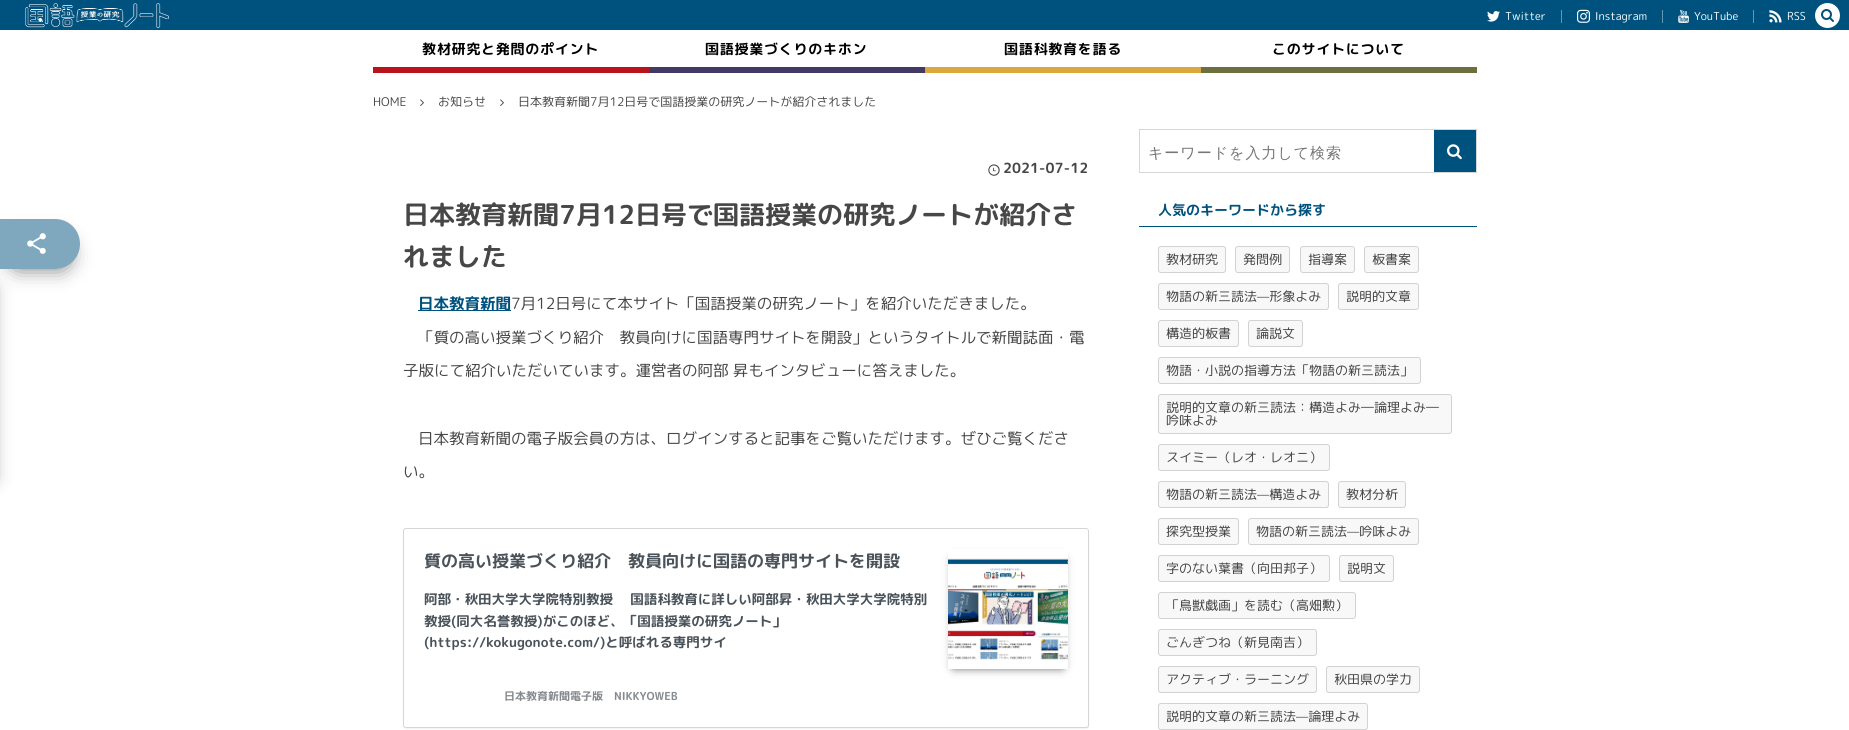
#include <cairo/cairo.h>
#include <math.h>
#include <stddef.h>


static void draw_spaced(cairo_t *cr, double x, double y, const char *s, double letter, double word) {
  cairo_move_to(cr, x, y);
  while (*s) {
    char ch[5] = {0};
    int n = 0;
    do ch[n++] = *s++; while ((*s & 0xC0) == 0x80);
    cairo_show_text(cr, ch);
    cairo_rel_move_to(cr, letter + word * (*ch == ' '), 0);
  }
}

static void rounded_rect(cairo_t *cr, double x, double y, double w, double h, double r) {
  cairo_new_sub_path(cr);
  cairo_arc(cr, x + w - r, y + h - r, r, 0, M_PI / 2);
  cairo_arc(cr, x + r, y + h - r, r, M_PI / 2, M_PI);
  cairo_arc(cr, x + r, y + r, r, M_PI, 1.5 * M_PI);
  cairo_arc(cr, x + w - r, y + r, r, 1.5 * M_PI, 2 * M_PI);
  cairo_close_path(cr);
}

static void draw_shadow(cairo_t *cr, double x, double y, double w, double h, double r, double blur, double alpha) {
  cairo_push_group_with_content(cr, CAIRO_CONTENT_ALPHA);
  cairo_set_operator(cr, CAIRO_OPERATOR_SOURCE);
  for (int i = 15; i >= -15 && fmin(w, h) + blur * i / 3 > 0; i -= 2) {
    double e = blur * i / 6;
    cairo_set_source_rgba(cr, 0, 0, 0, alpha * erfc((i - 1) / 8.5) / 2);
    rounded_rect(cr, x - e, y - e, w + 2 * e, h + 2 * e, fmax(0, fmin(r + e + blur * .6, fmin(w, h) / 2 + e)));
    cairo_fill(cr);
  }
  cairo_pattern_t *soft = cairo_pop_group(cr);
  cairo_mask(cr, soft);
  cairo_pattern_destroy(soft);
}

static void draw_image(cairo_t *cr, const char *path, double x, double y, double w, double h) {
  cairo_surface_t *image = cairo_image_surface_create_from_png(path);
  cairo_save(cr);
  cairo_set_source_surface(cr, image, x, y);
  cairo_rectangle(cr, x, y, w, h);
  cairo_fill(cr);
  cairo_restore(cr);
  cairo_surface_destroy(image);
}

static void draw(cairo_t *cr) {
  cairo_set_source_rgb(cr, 1, 1, 1);
  cairo_paint(cr);
  cairo_set_source_rgb(cr, 0, 82 / 255.0, 126 / 255.0);
  cairo_rectangle(cr, 0, 0, 1849, 30);
  cairo_fill(cr);
  draw_image(cr, "images/1.png", 25, 3, 144, 25);
  draw_image(cr, "images/2.png", 1487, 11, 13, 11);
  cairo_set_source_rgb(cr, 102 / 255.0, 151 / 255.0, 178 / 255.0);
  cairo_rectangle(cr, 1561, 10, 1, 13);
  cairo_fill(cr);
  draw_image(cr, "images/3.png", 1577, 9, 13, 14);
  cairo_rectangle(cr, 1662, 10, 1, 13);
  cairo_fill(cr);
  draw_image(cr, "images/4.png", 1678, 9, 11, 14);
  cairo_rectangle(cr, 1753, 10, 1, 13);
  cairo_fill(cr);
  draw_image(cr, "images/5.png", 1769, 10, 13, 13);
  cairo_set_source_rgb(cr, 187 / 255.0, 19 / 255.0, 27 / 255.0);
  cairo_rectangle(cr, 373, 67, 276, 6);
  cairo_fill(cr);
  cairo_set_source_rgb(cr, 66 / 255.0, 57 / 255.0, 100 / 255.0);
  cairo_rectangle(cr, 649, 67, 276, 6);
  cairo_fill(cr);
  cairo_set_source_rgb(cr, 219 / 255.0, 168 / 255.0, 61 / 255.0);
  cairo_rectangle(cr, 925, 67, 276, 6);
  cairo_fill(cr);
  cairo_set_source_rgb(cr, 109 / 255.0, 111 / 255.0, 62 / 255.0);
  cairo_rectangle(cr, 1201, 67, 276, 6);
  cairo_fill(cr);
  draw_image(cr, "images/6.png", 420, 99, 4, 7);
  draw_image(cr, "images/6.png", 500, 99, 4, 7);
  cairo_save(cr);
  cairo_set_fill_rule(cr, CAIRO_FILL_RULE_EVEN_ODD);
  cairo_new_path(cr);
  cairo_move_to(cr, 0, 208);
  cairo_line_to(cr, 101, 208);
  cairo_line_to(cr, 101, 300);
  cairo_line_to(cr, 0, 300);
  cairo_close_path(cr);
  cairo_move_to(cr, 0, 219);
  cairo_line_to(cr, 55, 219);
  cairo_curve_to(cr, 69, 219, 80, 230, 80, 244);
  cairo_curve_to(cr, 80, 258, 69, 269, 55, 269);
  cairo_line_to(cr, 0, 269);
  cairo_close_path(cr);
  cairo_clip(cr);
  cairo_set_source_rgb(cr, 0, 0, 0);
  draw_shadow(cr, 10, 239, 60, 30, 15, 10, 0.52);
  cairo_restore(cr);
  cairo_set_source_rgba(cr, 0, 82 / 255.0, 126 / 255.0, 0.5);
  cairo_new_path(cr);
  cairo_move_to(cr, 0, 219);
  cairo_line_to(cr, 55, 219);
  cairo_curve_to(cr, 69, 219, 80, 230, 80, 244);
  cairo_curve_to(cr, 80, 258, 69, 269, 55, 269);
  cairo_line_to(cr, 0, 269);
  cairo_close_path(cr);
  cairo_fill(cr);
  draw_image(cr, "images/7.png", 27, 233, 19, 21);
  cairo_set_source_rgb(cr, 0, 0, 0);
  draw_shadow(cr, -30, 289, 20, 190, 0, 10, 0.52);
  draw_image(cr, "images/8.png", 988, 164, 12, 12);
  cairo_set_source_rgb(cr, 0, 82 / 255.0, 126 / 255.0);
  cairo_rectangle(cr, 418, 310, 93, 1);
  cairo_fill(cr);
  cairo_set_source_rgb(cr, 0, 0, 0);
  draw_shadow(cr, 403, 529, 686, 200, 3, 0.5, 0.05);
  cairo_set_source_rgb(cr, 1, 1, 1);
  rounded_rect(cr, 403, 528, 686, 200, 3);
  cairo_fill(cr);
  rounded_rect(cr, 403.5, 528.5, 685, 199, 2.5);
  cairo_set_source_rgba(cr, 170 / 255.0, 170 / 255.0, 170 / 255.0, 0.48);
  cairo_set_line_width(cr, 1);
  cairo_stroke(cr);
  cairo_save(cr);
  cairo_set_fill_rule(cr, CAIRO_FILL_RULE_EVEN_ODD);
  cairo_new_path(cr);
  cairo_move_to(cr, 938, 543);
  cairo_line_to(cr, 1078, 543);
  cairo_line_to(cr, 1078, 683);
  cairo_line_to(cr, 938, 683);
  cairo_close_path(cr);
  cairo_move_to(cr, 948, 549);
  cairo_line_to(cr, 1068, 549);
  cairo_line_to(cr, 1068, 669);
  cairo_line_to(cr, 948, 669);
  cairo_close_path(cr);
  cairo_clip(cr);
  cairo_set_source_rgb(cr, 0, 0, 0);
  draw_shadow(cr, 954, 559, 108, 108, 0, 5, 0.8);
  cairo_restore(cr);
  draw_image(cr, "images/9.png", 948, 558, 120, 102);
  cairo_rectangle(cr, 1139.5, 129.5, 337, 43);
  cairo_set_source_rgb(cr, 214 / 255.0, 214 / 255.0, 214 / 255.0);
  cairo_stroke(cr);
  cairo_set_source_rgb(cr, 0, 82 / 255.0, 126 / 255.0);
  cairo_rectangle(cr, 1434, 130, 42, 42);
  cairo_fill(cr);
  draw_image(cr, "images/10.png", 1447, 144, 15, 16);
  cairo_rectangle(cr, 1139, 226, 338, 1);
  cairo_fill(cr);
  cairo_set_source_rgb(cr, 248 / 255.0, 248 / 255.0, 248 / 255.0);
  rounded_rect(cr, 1158, 246, 68, 27, 3);
  cairo_fill(cr);
  rounded_rect(cr, 1158.5, 246.5, 67, 26, 2.5);
  cairo_set_source_rgba(cr, 170 / 255.0, 170 / 255.0, 170 / 255.0, 0.48);
  cairo_stroke(cr);
  cairo_set_source_rgb(cr, 248 / 255.0, 248 / 255.0, 248 / 255.0);
  rounded_rect(cr, 1235, 246, 55, 27, 3);
  cairo_fill(cr);
  rounded_rect(cr, 1235.5, 246.5, 54, 26, 2.5);
  cairo_set_source_rgba(cr, 170 / 255.0, 170 / 255.0, 170 / 255.0, 0.48);
  cairo_stroke(cr);
  cairo_set_source_rgb(cr, 248 / 255.0, 248 / 255.0, 248 / 255.0);
  rounded_rect(cr, 1300, 246, 55, 27, 3);
  cairo_fill(cr);
  rounded_rect(cr, 1300.5, 246.5, 54, 26, 2.5);
  cairo_set_source_rgba(cr, 170 / 255.0, 170 / 255.0, 170 / 255.0, 0.48);
  cairo_stroke(cr);
  cairo_set_source_rgb(cr, 248 / 255.0, 248 / 255.0, 248 / 255.0);
  rounded_rect(cr, 1364, 246, 55, 27, 3);
  cairo_fill(cr);
  rounded_rect(cr, 1364.5, 246.5, 54, 26, 2.5);
  cairo_set_source_rgba(cr, 170 / 255.0, 170 / 255.0, 170 / 255.0, 0.48);
  cairo_stroke(cr);
  cairo_set_source_rgb(cr, 248 / 255.0, 248 / 255.0, 248 / 255.0);
  rounded_rect(cr, 1158, 283, 171, 27, 3);
  cairo_fill(cr);
  rounded_rect(cr, 1158.5, 283.5, 170, 26, 2.5);
  cairo_set_source_rgba(cr, 170 / 255.0, 170 / 255.0, 170 / 255.0, 0.48);
  cairo_stroke(cr);
  cairo_set_source_rgb(cr, 248 / 255.0, 248 / 255.0, 248 / 255.0);
  rounded_rect(cr, 1338, 283, 81, 27, 3);
  cairo_fill(cr);
  rounded_rect(cr, 1338.5, 283.5, 80, 26, 2.5);
  cairo_set_source_rgba(cr, 170 / 255.0, 170 / 255.0, 170 / 255.0, 0.48);
  cairo_stroke(cr);
  cairo_set_source_rgb(cr, 248 / 255.0, 248 / 255.0, 248 / 255.0);
  rounded_rect(cr, 1158, 320, 81, 27, 3);
  cairo_fill(cr);
  rounded_rect(cr, 1158.5, 320.5, 80, 26, 2.5);
  cairo_set_source_rgba(cr, 170 / 255.0, 170 / 255.0, 170 / 255.0, 0.48);
  cairo_stroke(cr);
  cairo_set_source_rgb(cr, 248 / 255.0, 248 / 255.0, 248 / 255.0);
  rounded_rect(cr, 1248, 320, 55, 27, 3);
  cairo_fill(cr);
  rounded_rect(cr, 1248.5, 320.5, 54, 26, 2.5);
  cairo_set_source_rgba(cr, 170 / 255.0, 170 / 255.0, 170 / 255.0, 0.48);
  cairo_stroke(cr);
  cairo_set_source_rgb(cr, 248 / 255.0, 248 / 255.0, 248 / 255.0);
  rounded_rect(cr, 1158, 357, 263, 27, 3);
  cairo_fill(cr);
  rounded_rect(cr, 1158.5, 357.5, 262, 26, 2.5);
  cairo_set_source_rgba(cr, 170 / 255.0, 170 / 255.0, 170 / 255.0, 0.48);
  cairo_stroke(cr);
  cairo_set_source_rgb(cr, 248 / 255.0, 248 / 255.0, 248 / 255.0);
  rounded_rect(cr, 1158, 394, 294, 40, 3);
  cairo_fill(cr);
  rounded_rect(cr, 1158.5, 394.5, 293, 39, 2.5);
  cairo_set_source_rgba(cr, 170 / 255.0, 170 / 255.0, 170 / 255.0, 0.48);
  cairo_stroke(cr);
  cairo_set_source_rgb(cr, 248 / 255.0, 248 / 255.0, 248 / 255.0);
  rounded_rect(cr, 1158, 444, 172, 27, 3);
  cairo_fill(cr);
  rounded_rect(cr, 1158.5, 444.5, 171, 26, 2.5);
  cairo_set_source_rgba(cr, 170 / 255.0, 170 / 255.0, 170 / 255.0, 0.48);
  cairo_stroke(cr);
  cairo_set_source_rgb(cr, 248 / 255.0, 248 / 255.0, 248 / 255.0);
  rounded_rect(cr, 1158, 481, 171, 27, 3);
  cairo_fill(cr);
  rounded_rect(cr, 1158.5, 481.5, 170, 26, 2.5);
  cairo_set_source_rgba(cr, 170 / 255.0, 170 / 255.0, 170 / 255.0, 0.48);
  cairo_stroke(cr);
  cairo_set_source_rgb(cr, 248 / 255.0, 248 / 255.0, 248 / 255.0);
  rounded_rect(cr, 1338, 481, 68, 27, 3);
  cairo_fill(cr);
  rounded_rect(cr, 1338.5, 481.5, 67, 26, 2.5);
  cairo_set_source_rgba(cr, 170 / 255.0, 170 / 255.0, 170 / 255.0, 0.48);
  cairo_stroke(cr);
  cairo_set_source_rgb(cr, 248 / 255.0, 248 / 255.0, 248 / 255.0);
  rounded_rect(cr, 1158, 518, 81, 27, 3);
  cairo_fill(cr);
  rounded_rect(cr, 1158.5, 518.5, 80, 26, 2.5);
  cairo_set_source_rgba(cr, 170 / 255.0, 170 / 255.0, 170 / 255.0, 0.48);
  cairo_stroke(cr);
  cairo_set_source_rgb(cr, 248 / 255.0, 248 / 255.0, 248 / 255.0);
  rounded_rect(cr, 1248, 518, 171, 27, 3);
  cairo_fill(cr);
  rounded_rect(cr, 1248.5, 518.5, 170, 26, 2.5);
  cairo_set_source_rgba(cr, 170 / 255.0, 170 / 255.0, 170 / 255.0, 0.48);
  cairo_stroke(cr);
  cairo_set_source_rgb(cr, 248 / 255.0, 248 / 255.0, 248 / 255.0);
  rounded_rect(cr, 1158, 555, 172, 27, 3);
  cairo_fill(cr);
  rounded_rect(cr, 1158.5, 555.5, 171, 26, 2.5);
  cairo_set_source_rgba(cr, 170 / 255.0, 170 / 255.0, 170 / 255.0, 0.48);
  cairo_stroke(cr);
  cairo_set_source_rgb(cr, 248 / 255.0, 248 / 255.0, 248 / 255.0);
  rounded_rect(cr, 1339, 555, 55, 27, 3);
  cairo_fill(cr);
  rounded_rect(cr, 1339.5, 555.5, 54, 26, 2.5);
  cairo_set_source_rgba(cr, 170 / 255.0, 170 / 255.0, 170 / 255.0, 0.48);
  cairo_stroke(cr);
  cairo_set_source_rgb(cr, 248 / 255.0, 248 / 255.0, 248 / 255.0);
  rounded_rect(cr, 1158, 592, 198, 27, 3);
  cairo_fill(cr);
  rounded_rect(cr, 1158.5, 592.5, 197, 26, 2.5);
  cairo_set_source_rgba(cr, 170 / 255.0, 170 / 255.0, 170 / 255.0, 0.48);
  cairo_stroke(cr);
  cairo_set_source_rgb(cr, 248 / 255.0, 248 / 255.0, 248 / 255.0);
  rounded_rect(cr, 1158, 629, 159, 27, 3);
  cairo_fill(cr);
  rounded_rect(cr, 1158.5, 629.5, 158, 26, 2.5);
  cairo_set_source_rgba(cr, 170 / 255.0, 170 / 255.0, 170 / 255.0, 0.48);
  cairo_stroke(cr);
  cairo_set_source_rgb(cr, 248 / 255.0, 248 / 255.0, 248 / 255.0);
  rounded_rect(cr, 1158, 666, 159, 27, 3);
  cairo_fill(cr);
  rounded_rect(cr, 1158.5, 666.5, 158, 26, 2.5);
  cairo_set_source_rgba(cr, 170 / 255.0, 170 / 255.0, 170 / 255.0, 0.48);
  cairo_stroke(cr);
  cairo_set_source_rgb(cr, 248 / 255.0, 248 / 255.0, 248 / 255.0);
  rounded_rect(cr, 1326, 666, 94, 27, 3);
  cairo_fill(cr);
  rounded_rect(cr, 1326.5, 666.5, 93, 26, 2.5);
  cairo_set_source_rgba(cr, 170 / 255.0, 170 / 255.0, 170 / 255.0, 0.48);
  cairo_stroke(cr);
  cairo_set_source_rgb(cr, 248 / 255.0, 248 / 255.0, 248 / 255.0);
  rounded_rect(cr, 1158, 703, 210, 27, 3);
  cairo_fill(cr);
  rounded_rect(cr, 1158.5, 703.5, 209, 26, 2.5);
  cairo_set_source_rgba(cr, 170 / 255.0, 170 / 255.0, 170 / 255.0, 0.48);
  cairo_stroke(cr);
  cairo_set_source_rgb(cr, 1, 1, 1);
  cairo_arc(cr, 1827.5, 15.5, 12.5, 0, 2 * M_PI);
  cairo_fill(cr);
  draw_image(cr, "images/11.png", 1821, 9, 13, 13);
  cairo_select_font_face(cr, "Rounded Mplus 1c", CAIRO_FONT_SLANT_NORMAL, CAIRO_FONT_WEIGHT_NORMAL);
  cairo_set_font_size(cr, 11);
  cairo_move_to(cr, 1505, 20);
  cairo_show_text(cr, "Twitter");
  cairo_move_to(cr, 1595, 20);
  cairo_show_text(cr, "Instagram");
  cairo_move_to(cr, 1694, 20);
  cairo_show_text(cr, "YouTube");
  cairo_move_to(cr, 1787, 20);
  cairo_show_text(cr, "RSS");
  cairo_select_font_face(cr, "Rounded Mplus 1c Bold", CAIRO_FONT_SLANT_NORMAL, CAIRO_FONT_WEIGHT_BOLD);
  cairo_set_font_size(cr, 14);
  cairo_set_source_rgb(cr, 0, 0, 0);
  draw_spaced(cr, 422, 54, "教材研究と発問のポイント", 0.75, 0);
  draw_spaced(cr, 705, 54, "国語授業づくりのキホン", 0.75, 0);
  draw_spaced(cr, 1004, 54, "国語科教育を語る", 0.75, 0);
  draw_spaced(cr, 1272, 54, "このサイトについて", 0.75, 0);
  cairo_select_font_face(cr, "Rounded Mplus 1c", CAIRO_FONT_SLANT_NORMAL, CAIRO_FONT_WEIGHT_NORMAL);
  cairo_set_font_size(cr, 12);
  cairo_set_source_rgb(cr, 71 / 255.0, 71 / 255.0, 71 / 255.0);
  cairo_move_to(cr, 373, 106);
  cairo_show_text(cr, "HOME");
  cairo_move_to(cr, 438, 106);
  cairo_show_text(cr, "お知らせ");
  cairo_move_to(cr, 518, 106);
  cairo_show_text(cr, "日本教育新聞7月12日号で国語授業の研究ノートが紹介されました");
  cairo_select_font_face(cr, "Rounded Mplus 1c Bold", CAIRO_FONT_SLANT_NORMAL, CAIRO_FONT_WEIGHT_BOLD);
  cairo_set_font_size(cr, 14);
  cairo_move_to(cr, 1003, 173);
  cairo_show_text(cr, "2021-07-12");
  cairo_set_font_size(cr, 26);
  cairo_move_to(cr, 403, 224);
  cairo_show_text(cr, "日本教育新聞7月12日号で国語授業の研究ノートが紹介さ");
  cairo_move_to(cr, 403, 266);
  cairo_show_text(cr, "れました");
  cairo_set_font_size(cr, 15.5);
  cairo_set_source_rgb(cr, 0, 82 / 255.0, 126 / 255.0);
  cairo_move_to(cr, 418, 309);
  cairo_show_text(cr, "日本教育新聞");
  cairo_select_font_face(cr, "Rounded Mplus 1c", CAIRO_FONT_SLANT_NORMAL, CAIRO_FONT_WEIGHT_NORMAL);
  cairo_set_source_rgb(cr, 71 / 255.0, 71 / 255.0, 71 / 255.0);
  cairo_move_to(cr, 511, 309);
  cairo_show_text(cr, "7月12日号にて本サイト「国語授業の研究ノート」を紹介いただきました。");
  cairo_move_to(cr, 418, 343);
  cairo_show_text(cr, "「質の高い授業づくり紹介　教員向けに国語専門サイトを開設」というタイトルで新聞誌面・電");
  cairo_move_to(cr, 403, 376);
  cairo_show_text(cr, "子版にて紹介いただいています。運営者の阿部 昇もインタビューに答えました。");
  cairo_move_to(cr, 418, 444);
  cairo_show_text(cr, "日本教育新聞の電子版会員の方は、ログインすると記事をご覧いただけます。ぜひご覧くださ");
  cairo_move_to(cr, 403, 477);
  cairo_show_text(cr, "い。");
  cairo_select_font_face(cr, "Rounded Mplus 1c Bold", CAIRO_FONT_SLANT_NORMAL, CAIRO_FONT_WEIGHT_BOLD);
  cairo_set_font_size(cr, 17);
  cairo_set_source_rgb(cr, 75 / 255.0, 83 / 255.0, 90 / 255.0);
  cairo_move_to(cr, 424, 567);
  cairo_show_text(cr, "質の高い授業づくり紹介　教員向けに国語の専門サイトを開設");
  cairo_set_font_size(cr, 13.5);
  cairo_move_to(cr, 424, 604);
  cairo_show_text(cr, "阿部・秋田大学大学院特別教授 　国語科教育に詳しい阿部昇・秋田大学大学院特別");
  cairo_move_to(cr, 424, 626);
  cairo_show_text(cr, "教授(同大名誉教授)がこのほど、「国語授業の研究ノート」");
  cairo_move_to(cr, 424, 647);
  cairo_show_text(cr, "(https://kokugonote.com/)と呼ばれる専門サイ");
  cairo_set_font_size(cr, 11);
  cairo_set_source_rgb(cr, 133 / 255.0, 138 / 255.0, 143 / 255.0);
  cairo_move_to(cr, 504, 700);
  cairo_show_text(cr, "日本教育新聞電子版　NIKKYOWEB");
  cairo_select_font_face(cr, "WenQuanYi Zen Hei Medium", CAIRO_FONT_SLANT_NORMAL, CAIRO_FONT_WEIGHT_NORMAL);
  cairo_set_font_size(cr, 15);
  cairo_set_source_rgb(cr, 117 / 255.0, 117 / 255.0, 117 / 255.0);
  draw_spaced(cr, 1148, 158, "キーワードを入力して検索", 1, 0);
  cairo_select_font_face(cr, "Rounded Mplus 1c Bold", CAIRO_FONT_SLANT_NORMAL, CAIRO_FONT_WEIGHT_BOLD);
  cairo_set_font_size(cr, 14);
  cairo_set_source_rgb(cr, 0, 82 / 255.0, 126 / 255.0);
  cairo_move_to(cr, 1158, 215);
  cairo_show_text(cr, "人気のキーワードから探す");
  cairo_select_font_face(cr, "Rounded Mplus 1c", CAIRO_FONT_SLANT_NORMAL, CAIRO_FONT_WEIGHT_NORMAL);
  cairo_set_font_size(cr, 13);
  cairo_set_source_rgb(cr, 71 / 255.0, 71 / 255.0, 71 / 255.0);
  cairo_move_to(cr, 1166, 264);
  cairo_show_text(cr, "教材研究");
  cairo_move_to(cr, 1243, 264);
  cairo_show_text(cr, "発問例");
  cairo_move_to(cr, 1308, 264);
  cairo_show_text(cr, "指導案");
  cairo_move_to(cr, 1372, 264);
  cairo_show_text(cr, "板書案");
  cairo_move_to(cr, 1166, 301);
  cairo_show_text(cr, "物語の新三読法—形象よみ");
  cairo_move_to(cr, 1346, 301);
  cairo_show_text(cr, "説明的文章");
  cairo_move_to(cr, 1166, 338);
  cairo_show_text(cr, "構造的板書");
  cairo_move_to(cr, 1256, 338);
  cairo_show_text(cr, "論説文");
  cairo_move_to(cr, 1166, 375);
  cairo_show_text(cr, "物語・小説の指導方法「物語の新三読法」");
  cairo_move_to(cr, 1166, 412);
  cairo_show_text(cr, "説明的文章の新三読法：構造よみ―論理よみ―");
  cairo_move_to(cr, 1166, 425);
  cairo_show_text(cr, "吟味よみ");
  cairo_move_to(cr, 1166, 462);
  cairo_show_text(cr, "スイミー（レオ・レオニ）");
  cairo_move_to(cr, 1166, 499);
  cairo_show_text(cr, "物語の新三読法—構造よみ");
  cairo_move_to(cr, 1346, 499);
  cairo_show_text(cr, "教材分析");
  cairo_move_to(cr, 1166, 536);
  cairo_show_text(cr, "探究型授業");
  cairo_move_to(cr, 1256, 536);
  cairo_show_text(cr, "物語の新三読法—吟味よみ");
  cairo_move_to(cr, 1166, 573);
  cairo_show_text(cr, "字のない葉書（向田邦子）");
  cairo_move_to(cr, 1347, 573);
  cairo_show_text(cr, "説明文");
  cairo_move_to(cr, 1166, 610);
  cairo_show_text(cr, "「鳥獣戯画」を読む（高畑勲）");
  cairo_move_to(cr, 1166, 647);
  cairo_show_text(cr, "ごんぎつね（新見南吉）");
  cairo_move_to(cr, 1166, 684);
  cairo_show_text(cr, "アクティブ・ラーニング");
  cairo_move_to(cr, 1334, 684);
  cairo_show_text(cr, "秋田県の学力");
  cairo_move_to(cr, 1166, 721);
  cairo_show_text(cr, "説明的文章の新三読法—論理よみ");
}

int main(void) {
  cairo_surface_t *surface = cairo_image_surface_create(CAIRO_FORMAT_RGB24, 1849, 730);
  cairo_t *cr = cairo_create(surface);
  cairo_font_options_t *options = cairo_font_options_create();
  cairo_font_options_set_hint_metrics(options, CAIRO_HINT_METRICS_OFF);
  cairo_font_options_set_hint_style(options, CAIRO_HINT_STYLE_NONE);
  cairo_set_font_options(cr, options);
  cairo_set_miter_limit(cr, 4);
  draw(cr);
  cairo_surface_write_to_png(surface, "out.png");
  cairo_font_options_destroy(options);
  cairo_destroy(cr);
  cairo_surface_destroy(surface);
  return 0;
}
